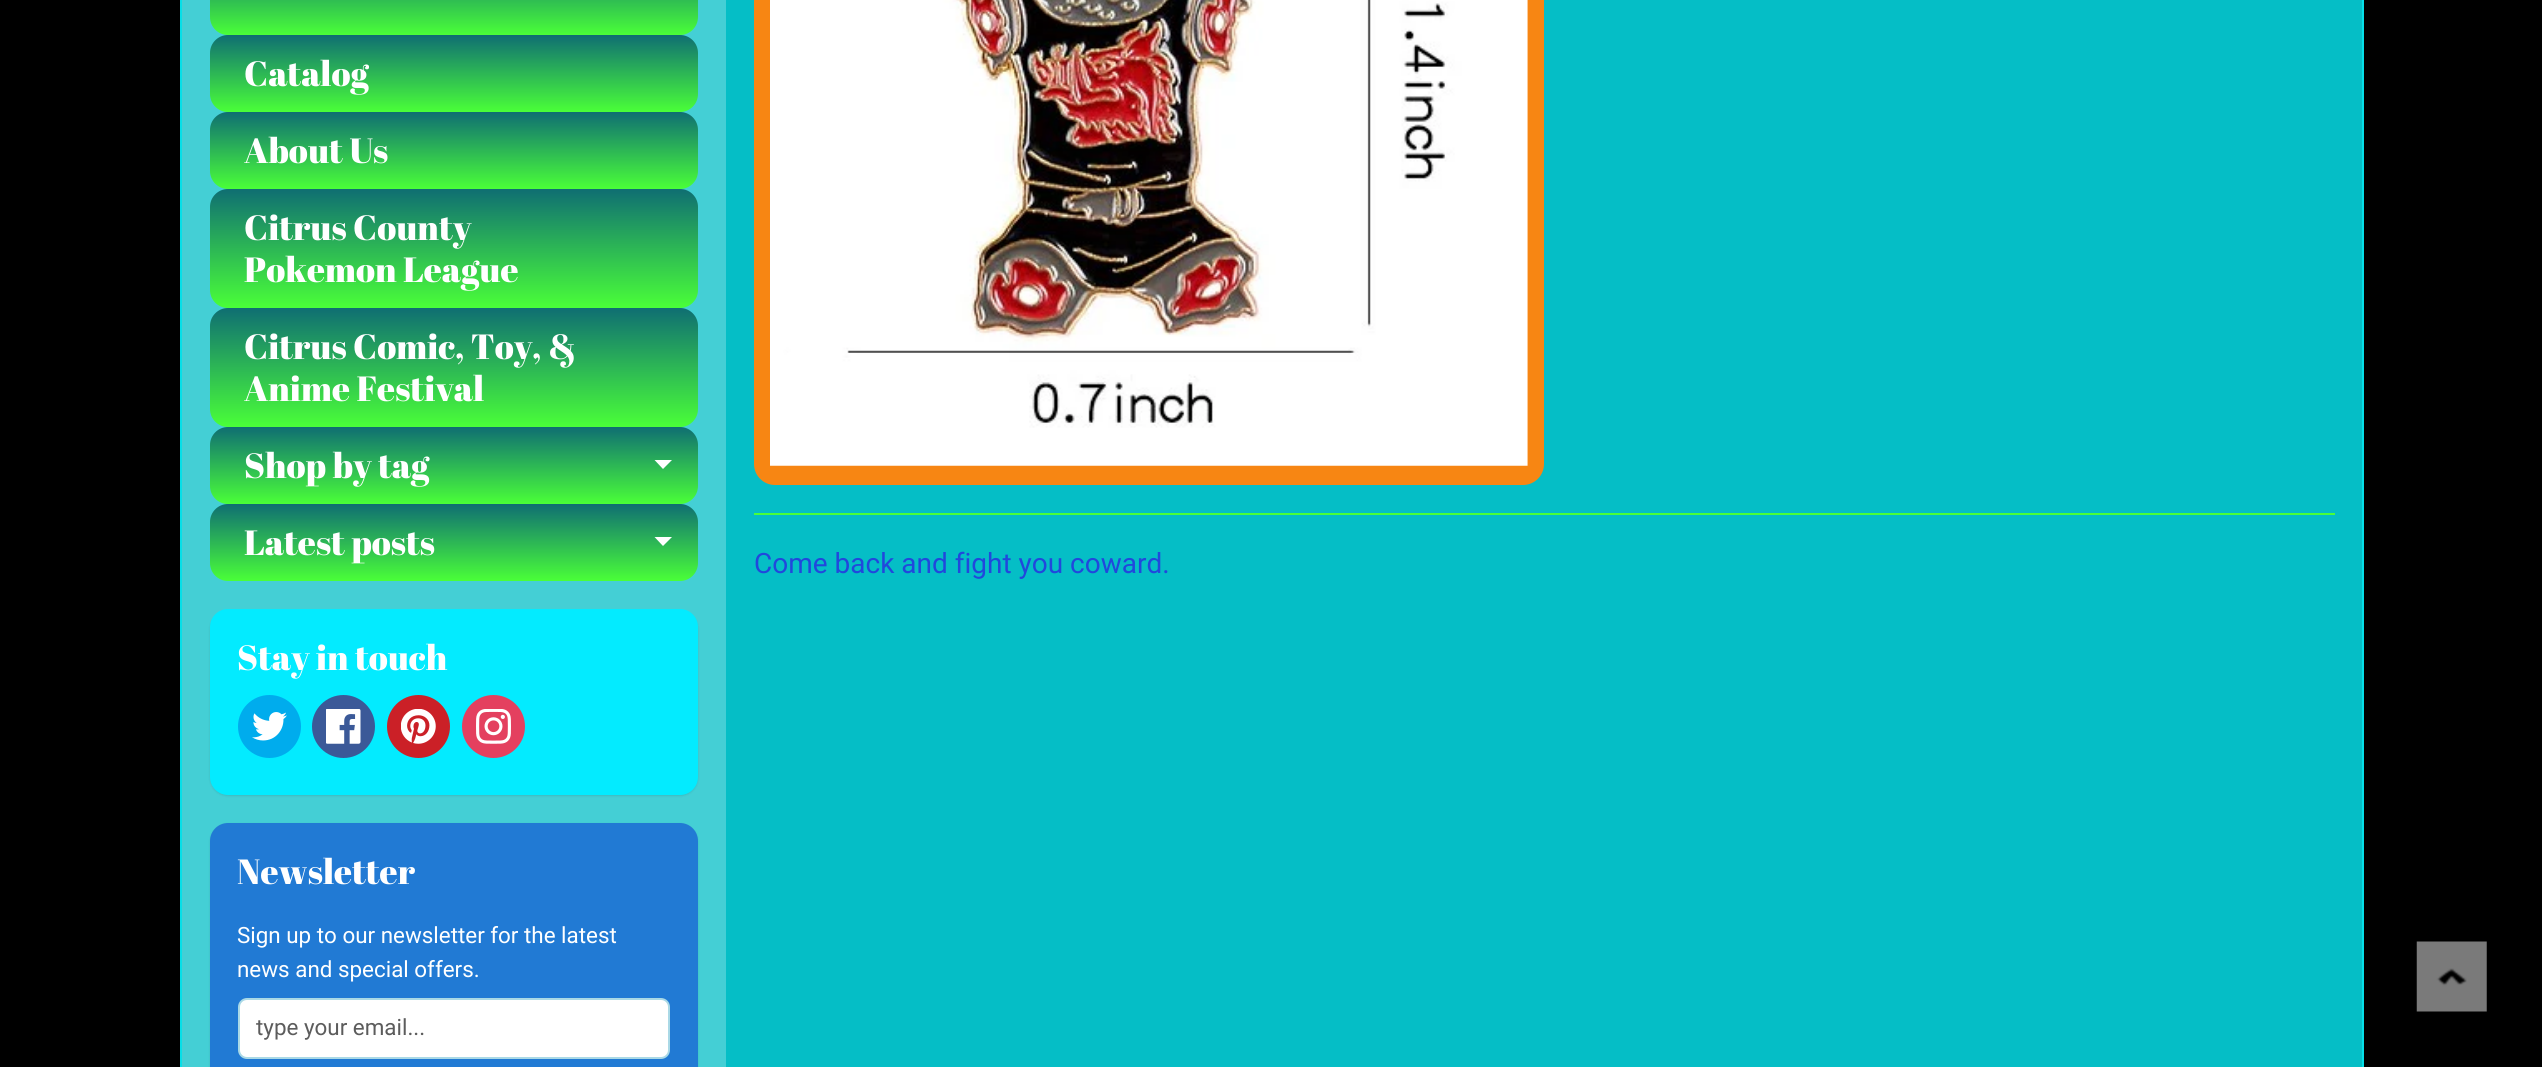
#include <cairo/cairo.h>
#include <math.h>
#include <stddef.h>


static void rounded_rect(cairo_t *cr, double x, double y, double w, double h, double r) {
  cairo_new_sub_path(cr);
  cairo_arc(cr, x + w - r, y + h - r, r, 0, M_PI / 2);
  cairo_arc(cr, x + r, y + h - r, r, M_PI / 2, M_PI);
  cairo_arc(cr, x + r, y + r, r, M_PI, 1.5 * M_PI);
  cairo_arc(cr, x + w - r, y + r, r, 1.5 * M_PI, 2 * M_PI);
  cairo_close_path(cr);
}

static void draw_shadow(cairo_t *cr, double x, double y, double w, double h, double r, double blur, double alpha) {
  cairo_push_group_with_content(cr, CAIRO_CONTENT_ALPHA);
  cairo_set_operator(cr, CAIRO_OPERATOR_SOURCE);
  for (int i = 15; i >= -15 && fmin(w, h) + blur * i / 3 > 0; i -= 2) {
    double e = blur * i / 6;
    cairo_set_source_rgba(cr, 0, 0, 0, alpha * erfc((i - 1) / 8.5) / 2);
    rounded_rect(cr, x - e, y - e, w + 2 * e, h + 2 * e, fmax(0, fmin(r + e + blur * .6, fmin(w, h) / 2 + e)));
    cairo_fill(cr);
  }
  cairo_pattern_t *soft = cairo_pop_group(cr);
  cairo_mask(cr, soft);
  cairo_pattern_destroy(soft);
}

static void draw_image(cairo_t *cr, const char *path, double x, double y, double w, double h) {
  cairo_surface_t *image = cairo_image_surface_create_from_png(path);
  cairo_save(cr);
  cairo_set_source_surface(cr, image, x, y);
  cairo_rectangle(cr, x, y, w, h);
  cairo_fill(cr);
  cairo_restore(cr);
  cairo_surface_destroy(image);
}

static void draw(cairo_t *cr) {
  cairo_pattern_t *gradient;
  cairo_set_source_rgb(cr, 0, 0, 0);
  cairo_paint(cr);
  cairo_set_source_rgb(cr, 5 / 255.0, 190 / 255.0, 198 / 255.0);
  cairo_rectangle(cr, 726, 0, 1636, 1067);
  cairo_fill(cr);
  cairo_rectangle(cr, 181, -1, 2182, 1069);
  cairo_set_source_rgb(cr, 6 / 255.0, 223 / 255.0, 232 / 255.0);
  cairo_stroke(cr);
  cairo_set_source_rgb(cr, 68 / 255.0, 207 / 255.0, 213 / 255.0);
  cairo_rectangle(cr, 182, 0, 544, 1067);
  cairo_fill(cr);
  gradient = cairo_pattern_create_linear(454, -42, 454, 35);
  cairo_pattern_add_color_stop_rgba(gradient, 0, 15 / 255.0, 110 / 255.0, 114 / 255.0, 1);
  cairo_pattern_add_color_stop_rgba(gradient, 1, 74 / 255.0, 1, 56 / 255.0, 1);
  cairo_set_source(cr, gradient);
  cairo_pattern_destroy(gradient);
  rounded_rect(cr, 210, -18, 488, 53, 18);
  cairo_fill(cr);
  gradient = cairo_pattern_create_linear(454, 35, 454, 112);
  cairo_pattern_add_color_stop_rgba(gradient, 0, 15 / 255.0, 110 / 255.0, 114 / 255.0, 1);
  cairo_pattern_add_color_stop_rgba(gradient, 1, 74 / 255.0, 1, 56 / 255.0, 1);
  cairo_set_source(cr, gradient);
  cairo_pattern_destroy(gradient);
  rounded_rect(cr, 210, 35, 488, 77, 18);
  cairo_fill(cr);
  gradient = cairo_pattern_create_linear(454, 112, 454, 189);
  cairo_pattern_add_color_stop_rgba(gradient, 0, 15 / 255.0, 110 / 255.0, 114 / 255.0, 1);
  cairo_pattern_add_color_stop_rgba(gradient, 1, 74 / 255.0, 1, 56 / 255.0, 1);
  cairo_set_source(cr, gradient);
  cairo_pattern_destroy(gradient);
  rounded_rect(cr, 210, 112, 488, 77, 18);
  cairo_fill(cr);
  gradient = cairo_pattern_create_linear(454, 189, 454, 308);
  cairo_pattern_add_color_stop_rgba(gradient, 0, 15 / 255.0, 110 / 255.0, 114 / 255.0, 1);
  cairo_pattern_add_color_stop_rgba(gradient, 1, 74 / 255.0, 1, 56 / 255.0, 1);
  cairo_set_source(cr, gradient);
  cairo_pattern_destroy(gradient);
  rounded_rect(cr, 210, 189, 488, 119, 18);
  cairo_fill(cr);
  gradient = cairo_pattern_create_linear(454, 308, 454, 427);
  cairo_pattern_add_color_stop_rgba(gradient, 0, 15 / 255.0, 110 / 255.0, 114 / 255.0, 1);
  cairo_pattern_add_color_stop_rgba(gradient, 1, 74 / 255.0, 1, 56 / 255.0, 1);
  cairo_set_source(cr, gradient);
  cairo_pattern_destroy(gradient);
  rounded_rect(cr, 210, 308, 488, 119, 18);
  cairo_fill(cr);
  gradient = cairo_pattern_create_linear(454, 427, 454, 504);
  cairo_pattern_add_color_stop_rgba(gradient, 0, 15 / 255.0, 110 / 255.0, 114 / 255.0, 1);
  cairo_pattern_add_color_stop_rgba(gradient, 1, 74 / 255.0, 1, 56 / 255.0, 1);
  cairo_set_source(cr, gradient);
  cairo_pattern_destroy(gradient);
  rounded_rect(cr, 210, 427, 488, 77, 18);
  cairo_fill(cr);
  cairo_set_source_rgb(cr, 1, 1, 1);
  cairo_new_path(cr);
  cairo_move_to(cr, 654.5, 460);
  cairo_line_to(cr, 672, 460);
  cairo_line_to(cr, 663, 469);
  cairo_close_path(cr);
  cairo_fill(cr);
  gradient = cairo_pattern_create_linear(454, 504, 454, 581);
  cairo_pattern_add_color_stop_rgba(gradient, 0, 15 / 255.0, 110 / 255.0, 114 / 255.0, 1);
  cairo_pattern_add_color_stop_rgba(gradient, 1, 74 / 255.0, 1, 56 / 255.0, 1);
  cairo_set_source(cr, gradient);
  cairo_pattern_destroy(gradient);
  rounded_rect(cr, 210, 504, 488, 77, 18);
  cairo_fill(cr);
  cairo_set_source_rgb(cr, 1, 1, 1);
  cairo_new_path(cr);
  cairo_move_to(cr, 654.5, 537);
  cairo_line_to(cr, 672, 537);
  cairo_line_to(cr, 663, 546);
  cairo_close_path(cr);
  cairo_fill(cr);
  cairo_set_source_rgb(cr, 0, 0, 0);
  draw_shadow(cr, 210, 611, 488, 185, 18, 1, 0.1);
  cairo_set_source_rgb(cr, 3 / 255.0, 235 / 255.0, 1);
  rounded_rect(cr, 210, 609, 488, 186, 18);
  cairo_fill(cr);
  cairo_set_source_rgb(cr, 0, 172 / 255.0, 237 / 255.0);
  cairo_arc(cr, 269.5, 726.5, 31.5, 0, 2 * M_PI);
  cairo_fill(cr);
  draw_image(cr, "images/1.png", 252, 712, 35, 29);
  cairo_set_source_rgb(cr, 59 / 255.0, 89 / 255.0, 152 / 255.0);
  cairo_arc(cr, 343.5, 726.5, 31.5, 0, 2 * M_PI);
  cairo_fill(cr);
  draw_image(cr, "images/2.png", 326, 709, 35, 35);
  cairo_set_source_rgb(cr, 203 / 255.0, 32 / 255.0, 39 / 255.0);
  cairo_arc(cr, 418.5, 726.5, 31.5, 0, 2 * M_PI);
  cairo_fill(cr);
  draw_image(cr, "images/3.png", 401, 709, 35, 35);
  cairo_set_source_rgb(cr, 228 / 255.0, 64 / 255.0, 95 / 255.0);
  cairo_arc(cr, 493.5, 726.5, 31.5, 0, 2 * M_PI);
  cairo_fill(cr);
  draw_image(cr, "images/4.png", 476, 709, 35, 35);
  cairo_set_source_rgb(cr, 0, 0, 0);
  draw_shadow(cr, 210, 824, 488, 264, 18, 1, 0.1);
  cairo_set_source_rgb(cr, 33 / 255.0, 122 / 255.0, 212 / 255.0);
  rounded_rect(cr, 210, 823, 488, 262, 18);
  cairo_fill(cr);
  cairo_set_source_rgb(cr, 1, 1, 1);
  rounded_rect(cr, 239, 999, 430, 59, 8);
  cairo_fill_preserve(cr);
  cairo_set_source_rgb(cr, 170 / 255.0, 217 / 255.0, 230 / 255.0);
  cairo_stroke(cr);
  cairo_set_source_rgb(cr, 247 / 255.0, 134 / 255.0, 19 / 255.0);
  rounded_rect(cr, 754, -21, 790, 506, 21);
  cairo_fill(cr);
  draw_image(cr, "images/5.png", 770, 0, 758, 466);
  cairo_set_source_rgb(cr, 74 / 255.0, 1, 56 / 255.0);
  cairo_rectangle(cr, 754, 513, 1581, 2);
  cairo_fill(cr);
  draw_image(cr, "images/6.png", 2416, 941, 71, 71);
  cairo_select_font_face(cr, "Abril Fatface", CAIRO_FONT_SLANT_NORMAL, CAIRO_FONT_WEIGHT_NORMAL);
  cairo_set_font_size(cr, 35);
  cairo_set_source_rgb(cr, 1, 1, 1);
  cairo_move_to(cr, 244, 86);
  cairo_show_text(cr, "Catalog");
  cairo_move_to(cr, 244, 163);
  cairo_show_text(cr, "About Us");
  cairo_move_to(cr, 244, 240);
  cairo_show_text(cr, "Citrus County");
  cairo_move_to(cr, 244, 282);
  cairo_show_text(cr, "Pokemon League");
  cairo_move_to(cr, 244, 359);
  cairo_show_text(cr, "Citrus Comic, Toy, &");
  cairo_move_to(cr, 244, 401);
  cairo_show_text(cr, "Anime Festival");
  cairo_move_to(cr, 244, 478);
  cairo_show_text(cr, "Shop by tag");
  cairo_move_to(cr, 244, 555);
  cairo_show_text(cr, "Latest posts");
  cairo_move_to(cr, 237, 670);
  cairo_show_text(cr, "Stay in touch");
  cairo_move_to(cr, 237, 884);
  cairo_show_text(cr, "Newsletter");
  cairo_select_font_face(cr, "Roboto", CAIRO_FONT_SLANT_NORMAL, CAIRO_FONT_WEIGHT_NORMAL);
  cairo_set_font_size(cr, 22.4);
  cairo_move_to(cr, 237, 943);
  cairo_show_text(cr, "Sign up to our newsletter for the latest");
  cairo_move_to(cr, 237, 977);
  cairo_show_text(cr, "news and special offers.");
  cairo_set_source_rgb(cr, 92 / 255.0, 92 / 255.0, 92 / 255.0);
  cairo_move_to(cr, 256, 1035);
  cairo_show_text(cr, "type your email...");
  cairo_set_font_size(cr, 28);
  cairo_set_source_rgb(cr, 33 / 255.0, 72 / 255.0, 220 / 255.0);
  cairo_move_to(cr, 754, 573);
  cairo_show_text(cr, "Come back and fight you coward.");
}

int main(void) {
  cairo_surface_t *surface = cairo_image_surface_create(CAIRO_FORMAT_RGB24, 2542, 1067);
  cairo_t *cr = cairo_create(surface);
  cairo_font_options_t *options = cairo_font_options_create();
  cairo_font_options_set_hint_metrics(options, CAIRO_HINT_METRICS_OFF);
  cairo_font_options_set_hint_style(options, CAIRO_HINT_STYLE_NONE);
  cairo_set_font_options(cr, options);
  cairo_set_miter_limit(cr, 4);
  draw(cr);
  cairo_surface_write_to_png(surface, "out.png");
  cairo_font_options_destroy(options);
  cairo_destroy(cr);
  cairo_surface_destroy(surface);
  return 0;
}
